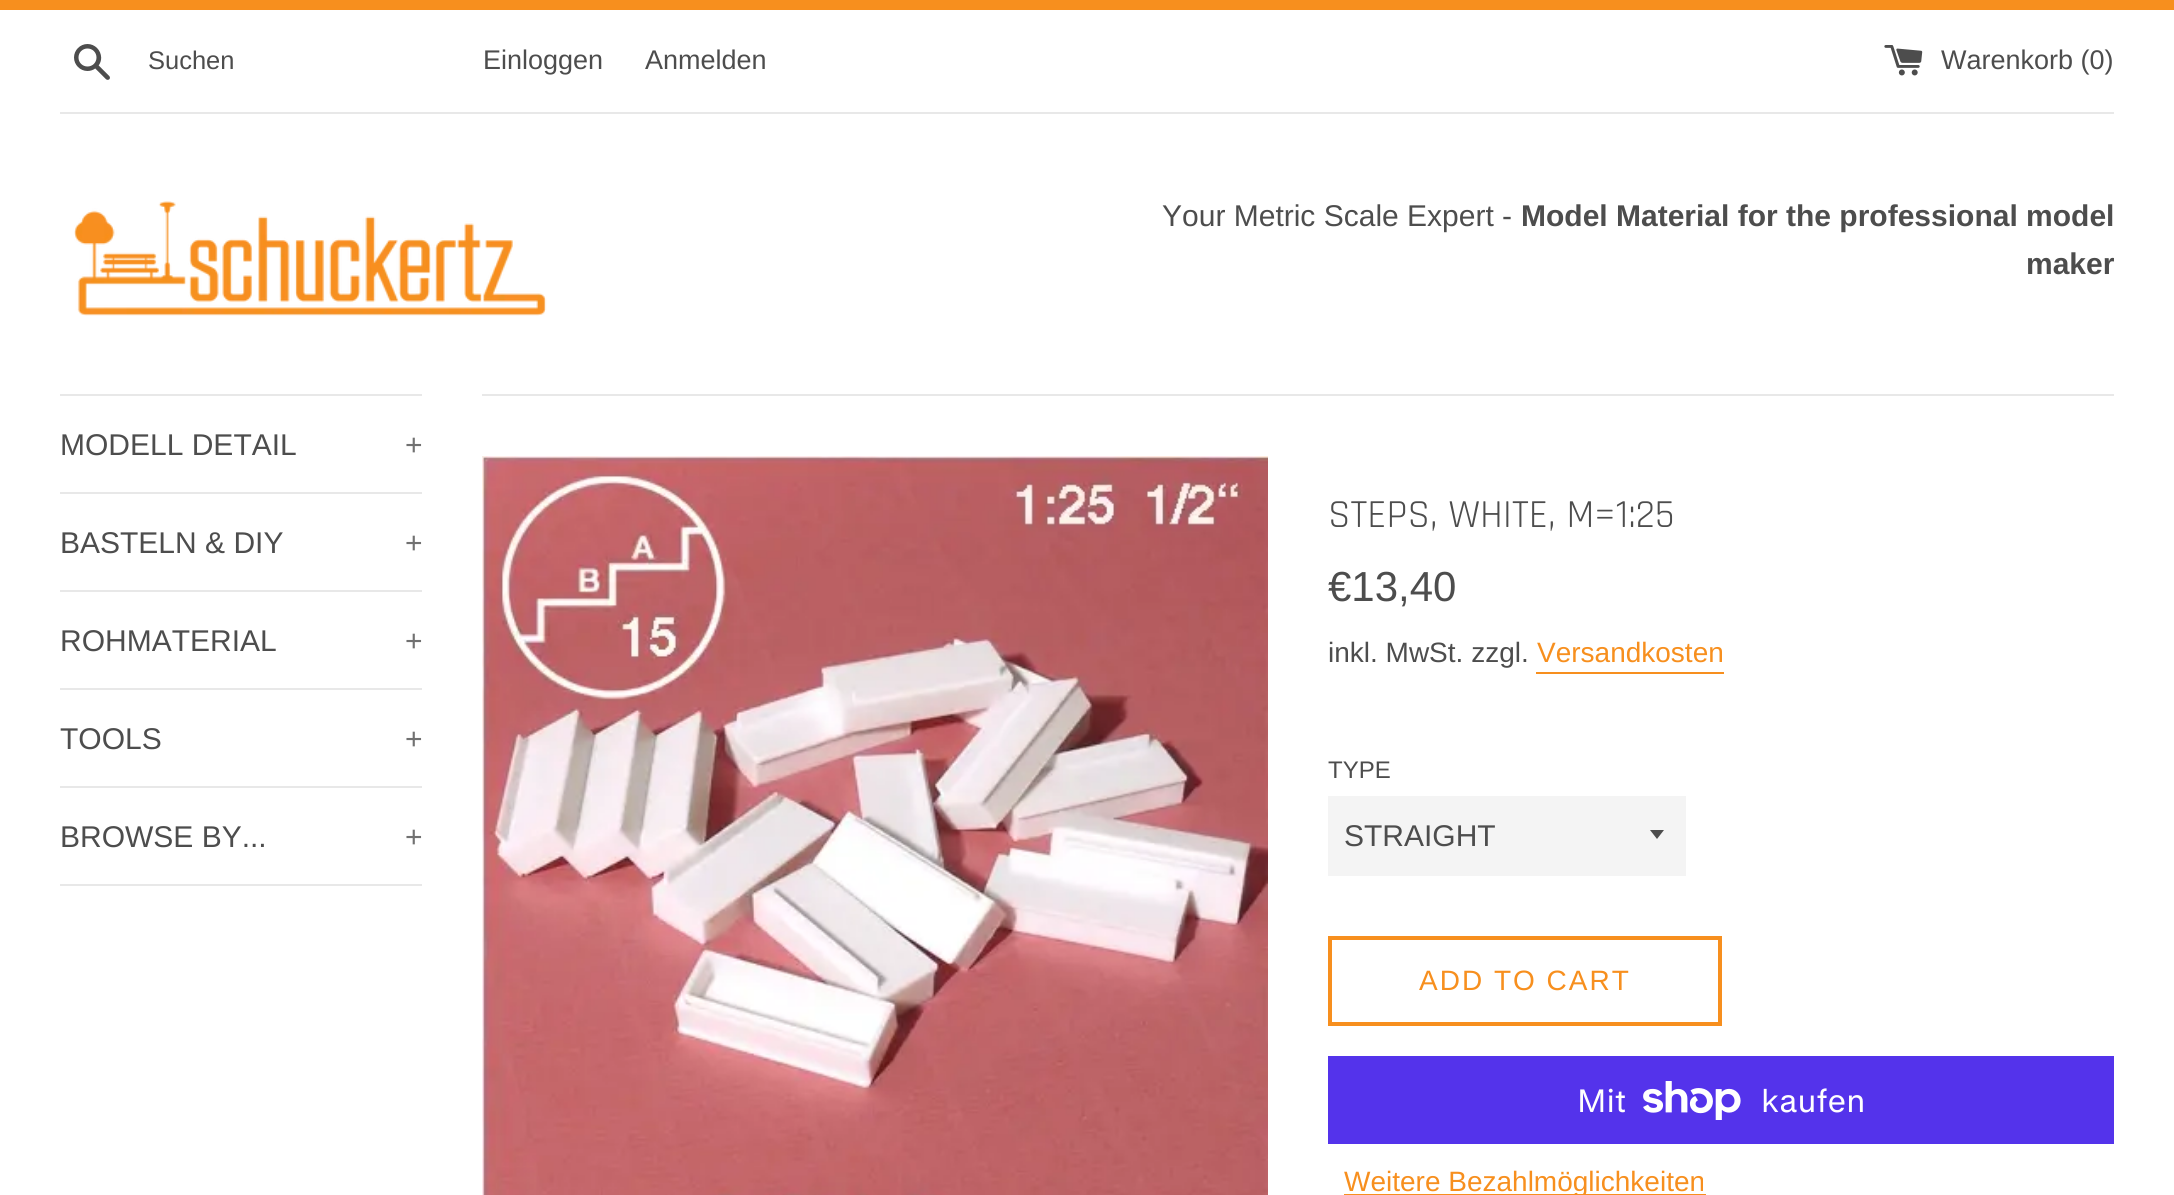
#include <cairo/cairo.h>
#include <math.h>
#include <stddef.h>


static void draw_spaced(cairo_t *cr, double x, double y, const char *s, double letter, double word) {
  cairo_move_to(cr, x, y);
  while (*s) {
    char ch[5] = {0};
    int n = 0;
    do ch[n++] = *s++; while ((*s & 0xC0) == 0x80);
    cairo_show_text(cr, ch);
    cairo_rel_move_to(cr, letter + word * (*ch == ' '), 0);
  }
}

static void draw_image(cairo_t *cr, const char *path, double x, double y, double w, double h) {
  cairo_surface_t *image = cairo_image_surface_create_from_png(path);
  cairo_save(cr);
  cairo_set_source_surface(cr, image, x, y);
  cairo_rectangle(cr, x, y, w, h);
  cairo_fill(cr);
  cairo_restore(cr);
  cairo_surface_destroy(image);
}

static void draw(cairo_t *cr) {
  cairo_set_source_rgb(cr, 1, 1, 1);
  cairo_paint(cr);
  cairo_set_source_rgb(cr, 247 / 255.0, 143 / 255.0, 30 / 255.0);
  cairo_rectangle(cr, 0, 0, 2174, 10);
  cairo_fill(cr);
  draw_image(cr, "images/1.png", 74, 44, 36, 36);
  draw_image(cr, "images/2.png", 1884, 45, 39, 31);
  cairo_set_source_rgb(cr, 232 / 255.0, 232 / 255.0, 232 / 255.0);
  cairo_rectangle(cr, 60, 112, 2054, 2);
  cairo_fill(cr);
  draw_image(cr, "images/3.png", 74, 201, 473, 115);
  cairo_rectangle(cr, 60, 394, 362, 2);
  cairo_fill(cr);
  cairo_rectangle(cr, 60, 492, 362, 2);
  cairo_fill(cr);
  cairo_rectangle(cr, 60, 590, 362, 2);
  cairo_fill(cr);
  cairo_rectangle(cr, 60, 688, 362, 2);
  cairo_fill(cr);
  cairo_rectangle(cr, 60, 786, 362, 2);
  cairo_fill(cr);
  cairo_rectangle(cr, 60, 884, 362, 2);
  cairo_fill(cr);
  cairo_rectangle(cr, 482, 394, 1632, 2);
  cairo_fill(cr);
  draw_image(cr, "images/4.png", 482, 456, 786, 739);
  cairo_set_source_rgb(cr, 247 / 255.0, 143 / 255.0, 30 / 255.0);
  cairo_rectangle(cr, 1536, 672, 188, 2);
  cairo_fill(cr);
  cairo_set_source_rgb(cr, 244 / 255.0, 244 / 255.0, 244 / 255.0);
  cairo_rectangle(cr, 1328, 796, 358, 80);
  cairo_fill(cr);
  cairo_set_source_rgb(cr, 77 / 255.0, 77 / 255.0, 77 / 255.0);
  cairo_new_path(cr);
  cairo_move_to(cr, 1650, 830);
  cairo_line_to(cr, 1657, 839);
  cairo_line_to(cr, 1664, 830);
  cairo_close_path(cr);
  cairo_fill(cr);
  cairo_rectangle(cr, 1330, 938, 390, 86);
  cairo_set_source_rgb(cr, 247 / 255.0, 143 / 255.0, 30 / 255.0);
  cairo_set_line_width(cr, 4);
  cairo_stroke(cr);
  cairo_set_source_rgb(cr, 84 / 255.0, 51 / 255.0, 235 / 255.0);
  cairo_rectangle(cr, 1328, 1056, 786, 88);
  cairo_fill(cr);
  draw_image(cr, "images/5.png", 1643, 1081, 98, 39);
  cairo_set_source_rgb(cr, 247 / 255.0, 143 / 255.0, 30 / 255.0);
  cairo_rectangle(cr, 1344, 1194, 362, 1);
  cairo_fill(cr);
  cairo_select_font_face(cr, "Liberation Sans", CAIRO_FONT_SLANT_NORMAL, CAIRO_FONT_WEIGHT_NORMAL);
  cairo_set_font_size(cr, 25.5);
  cairo_set_source_rgb(cr, 77 / 255.0, 77 / 255.0, 77 / 255.0);
  cairo_move_to(cr, 148, 69);
  cairo_show_text(cr, "Suchen");
  cairo_set_font_size(cr, 27);
  cairo_move_to(cr, 483, 69);
  cairo_show_text(cr, "Einloggen");
  cairo_move_to(cr, 645, 69);
  cairo_show_text(cr, "Anmelden");
  cairo_move_to(cr, 1941, 69);
  cairo_show_text(cr, "Warenkorb (0)");
  cairo_set_font_size(cr, 30);
  cairo_move_to(cr, 1162, 226);
  cairo_show_text(cr, "Your Metric Scale Expert -");
  cairo_select_font_face(cr, "Liberation Sans", CAIRO_FONT_SLANT_NORMAL, CAIRO_FONT_WEIGHT_BOLD);
  cairo_move_to(cr, 1521, 226);
  cairo_show_text(cr, "Model Material for the professional model");
  cairo_move_to(cr, 2026, 274);
  cairo_show_text(cr, "maker");
  cairo_select_font_face(cr, "Liberation Sans", CAIRO_FONT_SLANT_NORMAL, CAIRO_FONT_WEIGHT_NORMAL);
  cairo_move_to(cr, 60, 455);
  cairo_show_text(cr, "MODELL DETAIL");
  cairo_set_source_rgb(cr, 113 / 255.0, 113 / 255.0, 113 / 255.0);
  cairo_move_to(cr, 405, 455);
  cairo_show_text(cr, "+");
  cairo_set_source_rgb(cr, 77 / 255.0, 77 / 255.0, 77 / 255.0);
  cairo_move_to(cr, 60, 553);
  cairo_show_text(cr, "BASTELN & DIY");
  cairo_set_source_rgb(cr, 113 / 255.0, 113 / 255.0, 113 / 255.0);
  cairo_move_to(cr, 405, 553);
  cairo_show_text(cr, "+");
  cairo_set_source_rgb(cr, 77 / 255.0, 77 / 255.0, 77 / 255.0);
  cairo_move_to(cr, 60, 651);
  cairo_show_text(cr, "ROHMATERIAL");
  cairo_set_source_rgb(cr, 113 / 255.0, 113 / 255.0, 113 / 255.0);
  cairo_move_to(cr, 405, 651);
  cairo_show_text(cr, "+");
  cairo_set_source_rgb(cr, 77 / 255.0, 77 / 255.0, 77 / 255.0);
  cairo_move_to(cr, 60, 749);
  cairo_show_text(cr, "TOOLS");
  cairo_set_source_rgb(cr, 113 / 255.0, 113 / 255.0, 113 / 255.0);
  cairo_move_to(cr, 405, 749);
  cairo_show_text(cr, "+");
  cairo_set_source_rgb(cr, 77 / 255.0, 77 / 255.0, 77 / 255.0);
  cairo_move_to(cr, 60, 847);
  cairo_show_text(cr, "BROWSE BY...");
  cairo_set_source_rgb(cr, 113 / 255.0, 113 / 255.0, 113 / 255.0);
  cairo_move_to(cr, 405, 847);
  cairo_show_text(cr, "+");
  cairo_select_font_face(cr, "Rajdhani", CAIRO_FONT_SLANT_NORMAL, CAIRO_FONT_WEIGHT_NORMAL);
  cairo_set_font_size(cr, 40);
  cairo_set_source_rgb(cr, 77 / 255.0, 77 / 255.0, 77 / 255.0);
  cairo_move_to(cr, 1328, 527);
  cairo_show_text(cr, "STEPS, WHITE, M=1:25");
  cairo_select_font_face(cr, "Liberation Sans", CAIRO_FONT_SLANT_NORMAL, CAIRO_FONT_WEIGHT_NORMAL);
  cairo_set_font_size(cr, 42);
  cairo_move_to(cr, 1328, 601);
  cairo_show_text(cr, "€13,40");
  cairo_set_font_size(cr, 28);
  cairo_move_to(cr, 1328, 662);
  cairo_show_text(cr, "inkl. MwSt. zzgl.");
  cairo_set_source_rgb(cr, 247 / 255.0, 143 / 255.0, 30 / 255.0);
  cairo_move_to(cr, 1537, 662);
  cairo_show_text(cr, "Versandkosten");
  cairo_set_font_size(cr, 24);
  cairo_set_source_rgb(cr, 77 / 255.0, 77 / 255.0, 77 / 255.0);
  cairo_move_to(cr, 1328, 778);
  cairo_show_text(cr, "TYPE");
  cairo_set_font_size(cr, 30);
  cairo_move_to(cr, 1344, 846);
  cairo_show_text(cr, "STRAIGHT");
  cairo_set_font_size(cr, 28);
  cairo_set_source_rgb(cr, 247 / 255.0, 143 / 255.0, 30 / 255.0);
  draw_spaced(cr, 1419, 990, "ADD TO CART", 2, 0);
  cairo_select_font_face(cr, "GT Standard", CAIRO_FONT_SLANT_NORMAL, CAIRO_FONT_WEIGHT_NORMAL);
  cairo_set_font_size(cr, 32);
  cairo_set_source_rgb(cr, 1, 1, 1);
  cairo_move_to(cr, 1577, 1112);
  cairo_show_text(cr, "Mit");
  cairo_move_to(cr, 1761, 1112);
  cairo_show_text(cr, "kaufen");
  cairo_select_font_face(cr, "Liberation Sans", CAIRO_FONT_SLANT_NORMAL, CAIRO_FONT_WEIGHT_NORMAL);
  cairo_set_font_size(cr, 28);
  cairo_set_source_rgb(cr, 247 / 255.0, 143 / 255.0, 30 / 255.0);
  cairo_move_to(cr, 1344, 1191);
  cairo_show_text(cr, "Weitere Bezahlmöglichkeiten");
}

int main(void) {
  cairo_surface_t *surface = cairo_image_surface_create(CAIRO_FORMAT_RGB24, 2174, 1195);
  cairo_t *cr = cairo_create(surface);
  cairo_font_options_t *options = cairo_font_options_create();
  cairo_font_options_set_hint_metrics(options, CAIRO_HINT_METRICS_OFF);
  cairo_font_options_set_hint_style(options, CAIRO_HINT_STYLE_NONE);
  cairo_set_font_options(cr, options);
  cairo_set_miter_limit(cr, 4);
  draw(cr);
  cairo_surface_write_to_png(surface, "out.png");
  cairo_font_options_destroy(options);
  cairo_destroy(cr);
  cairo_surface_destroy(surface);
  return 0;
}
